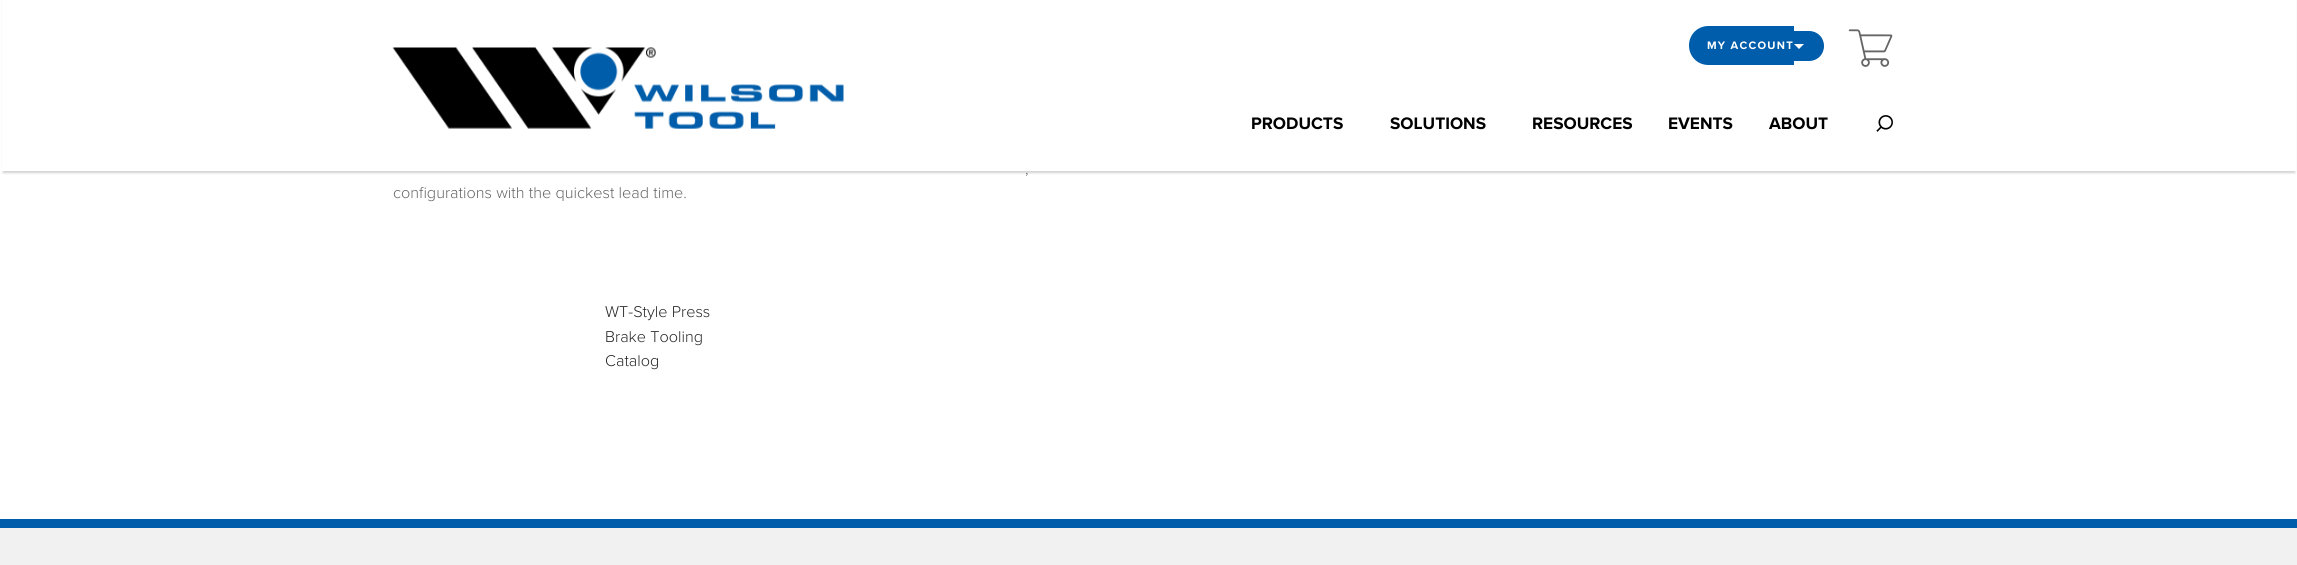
#include <cairo/cairo.h>
#include <math.h>
#include <stddef.h>


static void draw_spaced(cairo_t *cr, double x, double y, const char *s, double letter, double word) {
  cairo_move_to(cr, x, y);
  while (*s) {
    char ch[5] = {0};
    int n = 0;
    do ch[n++] = *s++; while ((*s & 0xC0) == 0x80);
    cairo_show_text(cr, ch);
    cairo_rel_move_to(cr, letter + word * (*ch == ' '), 0);
  }
}

static void rounded_rect(cairo_t *cr, double x, double y, double w, double h, double r) {
  cairo_new_sub_path(cr);
  cairo_arc(cr, x + w - r, y + h - r, r, 0, M_PI / 2);
  cairo_arc(cr, x + r, y + h - r, r, M_PI / 2, M_PI);
  cairo_arc(cr, x + r, y + r, r, M_PI, 1.5 * M_PI);
  cairo_arc(cr, x + w - r, y + r, r, 1.5 * M_PI, 2 * M_PI);
  cairo_close_path(cr);
}

static void draw_shadow(cairo_t *cr, double x, double y, double w, double h, double r, double blur, double alpha) {
  cairo_push_group_with_content(cr, CAIRO_CONTENT_ALPHA);
  cairo_set_operator(cr, CAIRO_OPERATOR_SOURCE);
  for (int i = 15; i >= -15 && fmin(w, h) + blur * i / 3 > 0; i -= 2) {
    double e = blur * i / 6;
    cairo_set_source_rgba(cr, 0, 0, 0, alpha * erfc((i - 1) / 8.5) / 2);
    rounded_rect(cr, x - e, y - e, w + 2 * e, h + 2 * e, fmax(0, fmin(r + e + blur * .6, fmin(w, h) / 2 + e)));
    cairo_fill(cr);
  }
  cairo_pattern_t *soft = cairo_pop_group(cr);
  cairo_mask(cr, soft);
  cairo_pattern_destroy(soft);
}

static void draw_image(cairo_t *cr, const char *path, double x, double y, double w, double h) {
  cairo_surface_t *image = cairo_image_surface_create_from_png(path);
  cairo_save(cr);
  cairo_set_source_surface(cr, image, x, y);
  cairo_rectangle(cr, x, y, w, h);
  cairo_fill(cr);
  cairo_restore(cr);
  cairo_surface_destroy(image);
}

static void draw(cairo_t *cr) {
  cairo_set_source_rgb(cr, 1, 1, 1);
  cairo_paint(cr);
  cairo_set_source_rgb(cr, 211 / 255.0, 211 / 255.0, 211 / 255.0);
  draw_shadow(cr, 3, -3, 2292, 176, 0, 1, 1);
  cairo_set_source_rgb(cr, 1, 1, 1);
  cairo_rectangle(cr, 2, 0, 2294, 171);
  cairo_fill(cr);
  draw_image(cr, "images/1.png", 392, 47, 452, 82);
  cairo_set_source_rgb(cr, 0, 93 / 255.0, 171 / 255.0);
  cairo_new_path(cr);
  cairo_move_to(cr, 1708.5, 26);
  cairo_line_to(cr, 1794, 26);
  cairo_line_to(cr, 1794, 65);
  cairo_line_to(cr, 1708.5, 65);
  cairo_curve_to(cr, 1697.5, 65, 1689, 56.5, 1689, 45.5);
  cairo_curve_to(cr, 1689, 34.5, 1697.5, 26, 1708.5, 26);
  cairo_close_path(cr);
  cairo_fill(cr);
  cairo_new_path(cr);
  cairo_move_to(cr, 1794, 31);
  cairo_line_to(cr, 1809, 31);
  cairo_curve_to(cr, 1817.5, 31, 1824, 37.5, 1824, 46);
  cairo_curve_to(cr, 1824, 54.5, 1817.5, 61, 1809, 61);
  cairo_line_to(cr, 1794, 61);
  cairo_close_path(cr);
  cairo_fill(cr);
  cairo_set_source_rgb(cr, 1, 1, 1);
  cairo_new_path(cr);
  cairo_move_to(cr, 1804, 44);
  cairo_line_to(cr, 1799, 49);
  cairo_line_to(cr, 1794, 44);
  cairo_close_path(cr);
  cairo_fill(cr);
  draw_image(cr, "images/2.png", 1848, 29, 45, 38);
  draw_image(cr, "images/3.png", 1876, 115, 17, 17);
  cairo_set_source_rgb(cr, 241 / 255.0, 241 / 255.0, 241 / 255.0);
  cairo_rectangle(cr, 0, 528, 2297, 37);
  cairo_fill(cr);
  cairo_set_source_rgb(cr, 0, 93 / 255.0, 171 / 255.0);
  cairo_rectangle(cr, 0, 519, 2297, 9);
  cairo_fill(cr);
  cairo_select_font_face(cr, "Proxima Nova", CAIRO_FONT_SLANT_NORMAL, CAIRO_FONT_WEIGHT_BOLD);
  cairo_set_font_size(cr, 11.25);
  cairo_set_source_rgb(cr, 1, 1, 1);
  draw_spaced(cr, 1707, 49, "MY ACCOUNT", 1.25, 0);
  cairo_set_font_size(cr, 17.25);
  cairo_set_source_rgb(cr, 0, 0, 0);
  cairo_move_to(cr, 1251, 129);
  cairo_show_text(cr, "PRODUCTS");
  cairo_move_to(cr, 1390, 129);
  cairo_show_text(cr, "SOLUTIONS");
  cairo_move_to(cr, 1532, 129);
  cairo_show_text(cr, "RESOURCES");
  cairo_move_to(cr, 1668, 129);
  cairo_show_text(cr, "EVENTS");
  cairo_move_to(cr, 1769, 129);
  cairo_show_text(cr, "ABOUT");
  cairo_select_font_face(cr, "Proxima Nova Light", CAIRO_FONT_SLANT_NORMAL, CAIRO_FONT_WEIGHT_NORMAL);
  cairo_set_font_size(cr, 16.25);
  cairo_set_source_rgb(cr, 102 / 255.0, 102 / 255.0, 102 / 255.0);
  cairo_move_to(cr, 1025, 174);
  cairo_show_text(cr, ",");
  cairo_move_to(cr, 393, 198);
  cairo_show_text(cr, "configurations with the quickest lead time.");
  cairo_set_source_rgb(cr, 38 / 255.0, 38 / 255.0, 38 / 255.0);
  cairo_move_to(cr, 605, 317);
  cairo_show_text(cr, "WT-Style Press");
  cairo_move_to(cr, 605, 342);
  cairo_show_text(cr, "Brake Tooling");
  cairo_move_to(cr, 605, 366);
  cairo_show_text(cr, "Catalog");
}

int main(void) {
  cairo_surface_t *surface = cairo_image_surface_create(CAIRO_FORMAT_RGB24, 2297, 565);
  cairo_t *cr = cairo_create(surface);
  cairo_font_options_t *options = cairo_font_options_create();
  cairo_font_options_set_hint_metrics(options, CAIRO_HINT_METRICS_OFF);
  cairo_font_options_set_hint_style(options, CAIRO_HINT_STYLE_NONE);
  cairo_set_font_options(cr, options);
  cairo_set_miter_limit(cr, 4);
  draw(cr);
  cairo_surface_write_to_png(surface, "out.png");
  cairo_font_options_destroy(options);
  cairo_destroy(cr);
  cairo_surface_destroy(surface);
  return 0;
}
